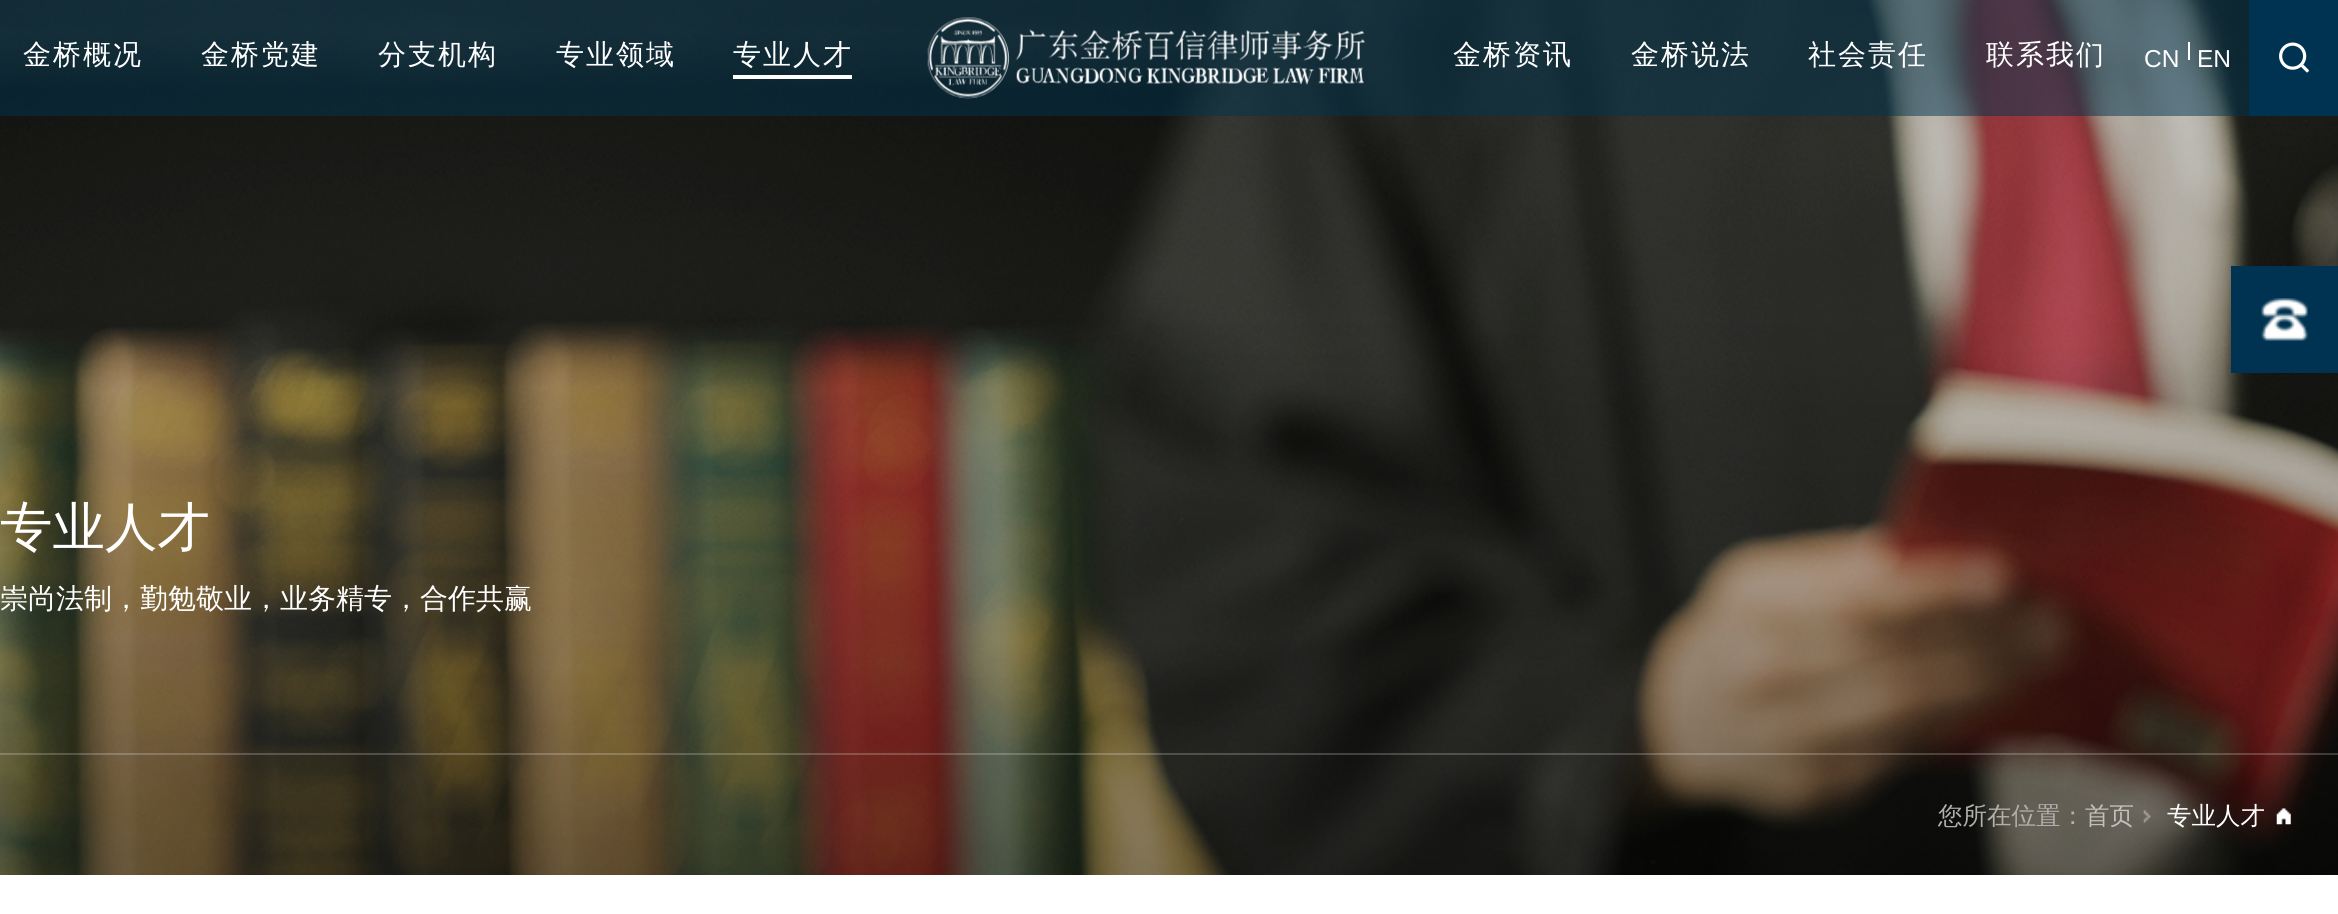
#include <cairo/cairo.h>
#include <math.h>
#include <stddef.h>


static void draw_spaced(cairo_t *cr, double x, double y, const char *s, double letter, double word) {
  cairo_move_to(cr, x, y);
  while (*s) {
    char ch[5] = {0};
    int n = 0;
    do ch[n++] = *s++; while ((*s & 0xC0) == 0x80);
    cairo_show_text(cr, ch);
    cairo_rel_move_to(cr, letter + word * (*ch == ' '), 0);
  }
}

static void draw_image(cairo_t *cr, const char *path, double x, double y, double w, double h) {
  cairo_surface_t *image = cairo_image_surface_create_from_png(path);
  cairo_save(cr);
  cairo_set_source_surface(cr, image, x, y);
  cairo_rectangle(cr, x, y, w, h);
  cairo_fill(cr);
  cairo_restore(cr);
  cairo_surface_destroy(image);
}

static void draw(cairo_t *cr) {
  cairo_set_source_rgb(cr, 1, 1, 1);
  cairo_paint(cr);
  draw_image(cr, "images/4.png", 0, 0, 2338, 875);
  cairo_set_source_rgba(cr, 0, 52 / 255.0, 81 / 255.0, 0.5);
  cairo_rectangle(cr, 0, 0, 2249, 116);
  cairo_fill(cr);
  draw_image(cr, "images/1.png", 927, 17, 438, 82);
  cairo_set_source_rgb(cr, 1, 1, 1);
  cairo_rectangle(cr, 733, 75, 119, 4);
  cairo_fill(cr);
  cairo_rectangle(cr, 2188, 42, 2, 18);
  cairo_fill(cr);
  cairo_set_source_rgb(cr, 0, 51 / 255.0, 81 / 255.0);
  cairo_rectangle(cr, 2249, 0, 89, 116);
  cairo_fill(cr);
  draw_image(cr, "images/2.png", 2279, 42, 30, 31);
  cairo_rectangle(cr, 2231, 266, 107, 107);
  cairo_fill(cr);
  draw_image(cr, "images/3.png", 2261, 298, 47, 43);
  cairo_set_source_rgba(cr, 1, 1, 1, 0.2);
  cairo_rectangle(cr, 0, 753, 2338, 2);
  cairo_fill(cr);
  draw_image(cr, "images/5.png", 2276, 808, 15, 17);
  draw_image(cr, "images/6.png", 2143, 810, 8, 13);
  cairo_select_font_face(cr, "WenQuanYi Zen Hei Medium", CAIRO_FONT_SLANT_NORMAL, CAIRO_FONT_WEIGHT_NORMAL);
  cairo_set_font_size(cr, 28);
  cairo_set_source_rgb(cr, 1, 1, 1);
  draw_spaced(cr, 23, 64, "金桥概况", 2, 0);
  draw_spaced(cr, 201, 64, "金桥党建", 2, 0);
  draw_spaced(cr, 378, 64, "分支机构", 2, 0);
  draw_spaced(cr, 556, 64, "专业领域", 2, 0);
  draw_spaced(cr, 733, 64, "专业人才", 2, 0);
  draw_spaced(cr, 1453, 64, "金桥资讯", 2, 0);
  draw_spaced(cr, 1631, 64, "金桥说法", 2, 0);
  draw_spaced(cr, 1808, 64, "社会责任", 2, 0);
  draw_spaced(cr, 1986, 64, "联系我们", 2, 0);
  cairo_select_font_face(cr, "Liberation Sans", CAIRO_FONT_SLANT_NORMAL, CAIRO_FONT_WEIGHT_NORMAL);
  cairo_set_font_size(cr, 24.5);
  cairo_move_to(cr, 2144, 67);
  cairo_show_text(cr, "CN");
  cairo_move_to(cr, 2197, 67);
  cairo_show_text(cr, "EN");
  cairo_select_font_face(cr, "WenQuanYi Zen Hei Medium", CAIRO_FONT_SLANT_NORMAL, CAIRO_FONT_WEIGHT_NORMAL);
  cairo_set_font_size(cr, 52.5);
  cairo_move_to(cr, 0, 545);
  cairo_show_text(cr, "专业人才");
  cairo_set_font_size(cr, 28);
  cairo_move_to(cr, 0, 608);
  cairo_show_text(cr, "崇尚法制，勤勉敬业，业务精专，合作共赢");
  cairo_set_font_size(cr, 24.5);
  cairo_set_source_rgb(cr, 177 / 255.0, 176 / 255.0, 173 / 255.0);
  cairo_move_to(cr, 1938, 824);
  cairo_show_text(cr, "您所在位置：");
  cairo_set_source_rgb(cr, 193 / 255.0, 192 / 255.0, 187 / 255.0);
  cairo_move_to(cr, 2085, 824);
  cairo_show_text(cr, "首页");
  cairo_set_source_rgb(cr, 1, 1, 1);
  cairo_move_to(cr, 2167, 824);
  cairo_show_text(cr, "专业人才");
}

int main(void) {
  cairo_surface_t *surface = cairo_image_surface_create(CAIRO_FORMAT_RGB24, 2338, 914);
  cairo_t *cr = cairo_create(surface);
  cairo_font_options_t *options = cairo_font_options_create();
  cairo_font_options_set_hint_metrics(options, CAIRO_HINT_METRICS_OFF);
  cairo_font_options_set_hint_style(options, CAIRO_HINT_STYLE_NONE);
  cairo_set_font_options(cr, options);
  cairo_set_miter_limit(cr, 4);
  draw(cr);
  cairo_surface_write_to_png(surface, "out.png");
  cairo_font_options_destroy(options);
  cairo_destroy(cr);
  cairo_surface_destroy(surface);
  return 0;
}
